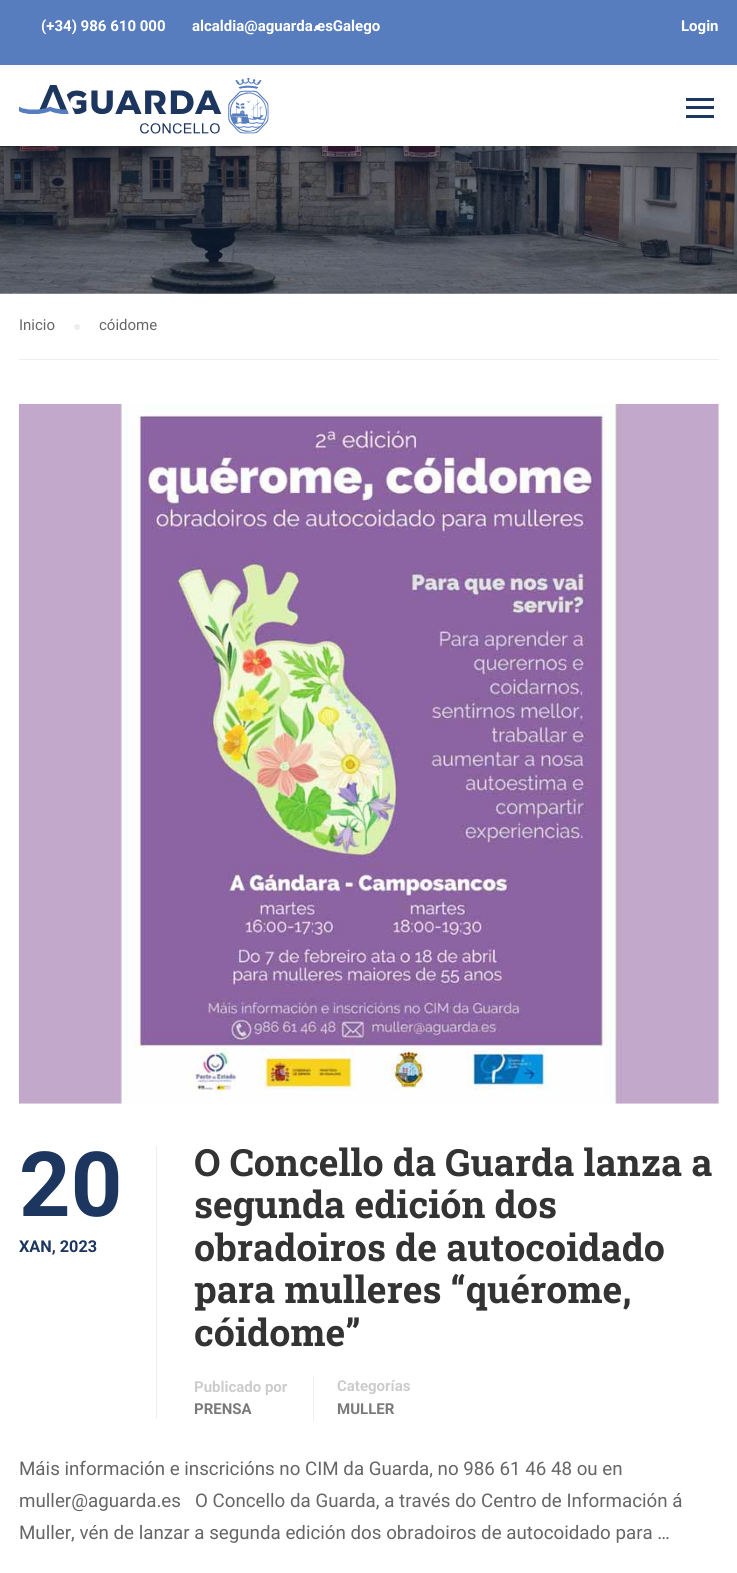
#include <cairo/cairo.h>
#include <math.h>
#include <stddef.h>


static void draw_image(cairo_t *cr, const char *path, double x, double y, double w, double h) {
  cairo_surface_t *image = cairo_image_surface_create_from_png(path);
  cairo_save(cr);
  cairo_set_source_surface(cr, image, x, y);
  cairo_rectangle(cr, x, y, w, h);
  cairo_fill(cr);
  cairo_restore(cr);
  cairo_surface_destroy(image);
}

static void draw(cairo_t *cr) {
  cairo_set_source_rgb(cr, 1, 1, 1);
  cairo_paint(cr);
  cairo_set_source_rgb(cr, 87 / 255.0, 125 / 255.0, 190 / 255.0);
  cairo_rectangle(cr, 0, 0, 737, 65);
  cairo_fill(cr);
  cairo_set_source_rgb(cr, 1, 1, 1);
  cairo_arc(cr, 317.5, 27.5, 2.5, 0, 2 * M_PI);
  cairo_fill(cr);
  draw_image(cr, "images/1.png", 19, 78, 250, 56);
  cairo_set_source_rgb(cr, 28 / 255.0, 54 / 255.0, 96 / 255.0);
  cairo_rectangle(cr, 686, 98, 28, 3);
  cairo_fill(cr);
  cairo_rectangle(cr, 686, 106, 28, 3);
  cairo_fill(cr);
  cairo_rectangle(cr, 686, 115, 28, 3);
  cairo_fill(cr);
  draw_image(cr, "images/2.png", 0, 146, 737, 148);
  cairo_set_source_rgb(cr, 238 / 255.0, 238 / 255.0, 238 / 255.0);
  cairo_rectangle(cr, 19, 359, 700, 1);
  cairo_fill(cr);
  cairo_arc(cr, 77, 327, 3, 0, 2 * M_PI);
  cairo_fill(cr);
  draw_image(cr, "images/3.png", 18, 403, 701, 701);
  cairo_rectangle(cr, 156, 1146, 1, 273);
  cairo_fill(cr);
  cairo_rectangle(cr, 313, 1376, 1, 45);
  cairo_fill(cr);
  cairo_select_font_face(cr, "Roboto", CAIRO_FONT_SLANT_NORMAL, CAIRO_FONT_WEIGHT_BOLD);
  cairo_set_font_size(cr, 15);
  cairo_set_source_rgb(cr, 1, 1, 1);
  cairo_move_to(cr, 41, 31);
  cairo_show_text(cr, "(+34) 986 610 000");
  cairo_move_to(cr, 192, 31);
  cairo_show_text(cr, "alcaldia@aguarda.esGalego");
  cairo_move_to(cr, 681, 31);
  cairo_show_text(cr, "Login");
  cairo_select_font_face(cr, "Roboto", CAIRO_FONT_SLANT_NORMAL, CAIRO_FONT_WEIGHT_NORMAL);
  cairo_set_source_rgb(cr, 102 / 255.0, 102 / 255.0, 102 / 255.0);
  cairo_move_to(cr, 19, 330);
  cairo_show_text(cr, "Inicio");
  cairo_move_to(cr, 99, 330);
  cairo_show_text(cr, "cóidome");
  cairo_select_font_face(cr, "Roboto", CAIRO_FONT_SLANT_NORMAL, CAIRO_FONT_WEIGHT_BOLD);
  cairo_set_font_size(cr, 90);
  cairo_set_source_rgb(cr, 28 / 255.0, 54 / 255.0, 96 / 255.0);
  cairo_move_to(cr, 19, 1216);
  cairo_show_text(cr, "20");
  cairo_set_font_size(cr, 16.25);
  cairo_move_to(cr, 19, 1252);
  cairo_show_text(cr, "XAN, 2023");
  cairo_select_font_face(cr, "Roboto Slab", CAIRO_FONT_SLANT_NORMAL, CAIRO_FONT_WEIGHT_BOLD);
  cairo_set_font_size(cr, 37.5);
  cairo_set_source_rgb(cr, 51 / 255.0, 51 / 255.0, 51 / 255.0);
  cairo_move_to(cr, 194, 1176);
  cairo_show_text(cr, "O Concello da Guarda lanza a");
  cairo_move_to(cr, 194, 1218);
  cairo_show_text(cr, "segunda edición dos");
  cairo_move_to(cr, 194, 1261);
  cairo_show_text(cr, "obradoiros de autocoidado");
  cairo_move_to(cr, 194, 1303);
  cairo_show_text(cr, "para mulleres “quérome,");
  cairo_move_to(cr, 194, 1346);
  cairo_show_text(cr, "cóidome”");
  cairo_select_font_face(cr, "Roboto", CAIRO_FONT_SLANT_NORMAL, CAIRO_FONT_WEIGHT_BOLD);
  cairo_set_font_size(cr, 15);
  cairo_set_source_rgb(cr, 204 / 255.0, 204 / 255.0, 204 / 255.0);
  cairo_move_to(cr, 194, 1392);
  cairo_show_text(cr, "Publicado por");
  cairo_set_source_rgb(cr, 122 / 255.0, 122 / 255.0, 122 / 255.0);
  cairo_move_to(cr, 194, 1414);
  cairo_show_text(cr, "PRENSA");
  cairo_set_source_rgb(cr, 204 / 255.0, 204 / 255.0, 204 / 255.0);
  cairo_move_to(cr, 337, 1391);
  cairo_show_text(cr, "Categorías");
  cairo_set_source_rgb(cr, 122 / 255.0, 122 / 255.0, 122 / 255.0);
  cairo_move_to(cr, 337, 1414);
  cairo_show_text(cr, "MULLER");
  cairo_select_font_face(cr, "Roboto", CAIRO_FONT_SLANT_NORMAL, CAIRO_FONT_WEIGHT_NORMAL);
  cairo_set_font_size(cr, 18.75);
  cairo_set_source_rgb(cr, 102 / 255.0, 102 / 255.0, 102 / 255.0);
  cairo_move_to(cr, 19, 1475);
  cairo_show_text(cr, "Máis información e inscricións no CIM da Guarda, no 986 61 46 48 ou en");
  cairo_move_to(cr, 19, 1507);
  cairo_show_text(cr, "muller@aguarda.es   O Concello da Guarda, a través do Centro de Información á");
  cairo_move_to(cr, 19, 1539);
  cairo_show_text(cr, "Muller, vén de lanzar a segunda edición dos obradoiros de autocoidado para …");
}

int main(void) {
  cairo_surface_t *surface = cairo_image_surface_create(CAIRO_FORMAT_RGB24, 737, 1573);
  cairo_t *cr = cairo_create(surface);
  cairo_font_options_t *options = cairo_font_options_create();
  cairo_font_options_set_hint_metrics(options, CAIRO_HINT_METRICS_OFF);
  cairo_font_options_set_hint_style(options, CAIRO_HINT_STYLE_NONE);
  cairo_set_font_options(cr, options);
  cairo_set_miter_limit(cr, 4);
  draw(cr);
  cairo_surface_write_to_png(surface, "out.png");
  cairo_font_options_destroy(options);
  cairo_destroy(cr);
  cairo_surface_destroy(surface);
  return 0;
}
